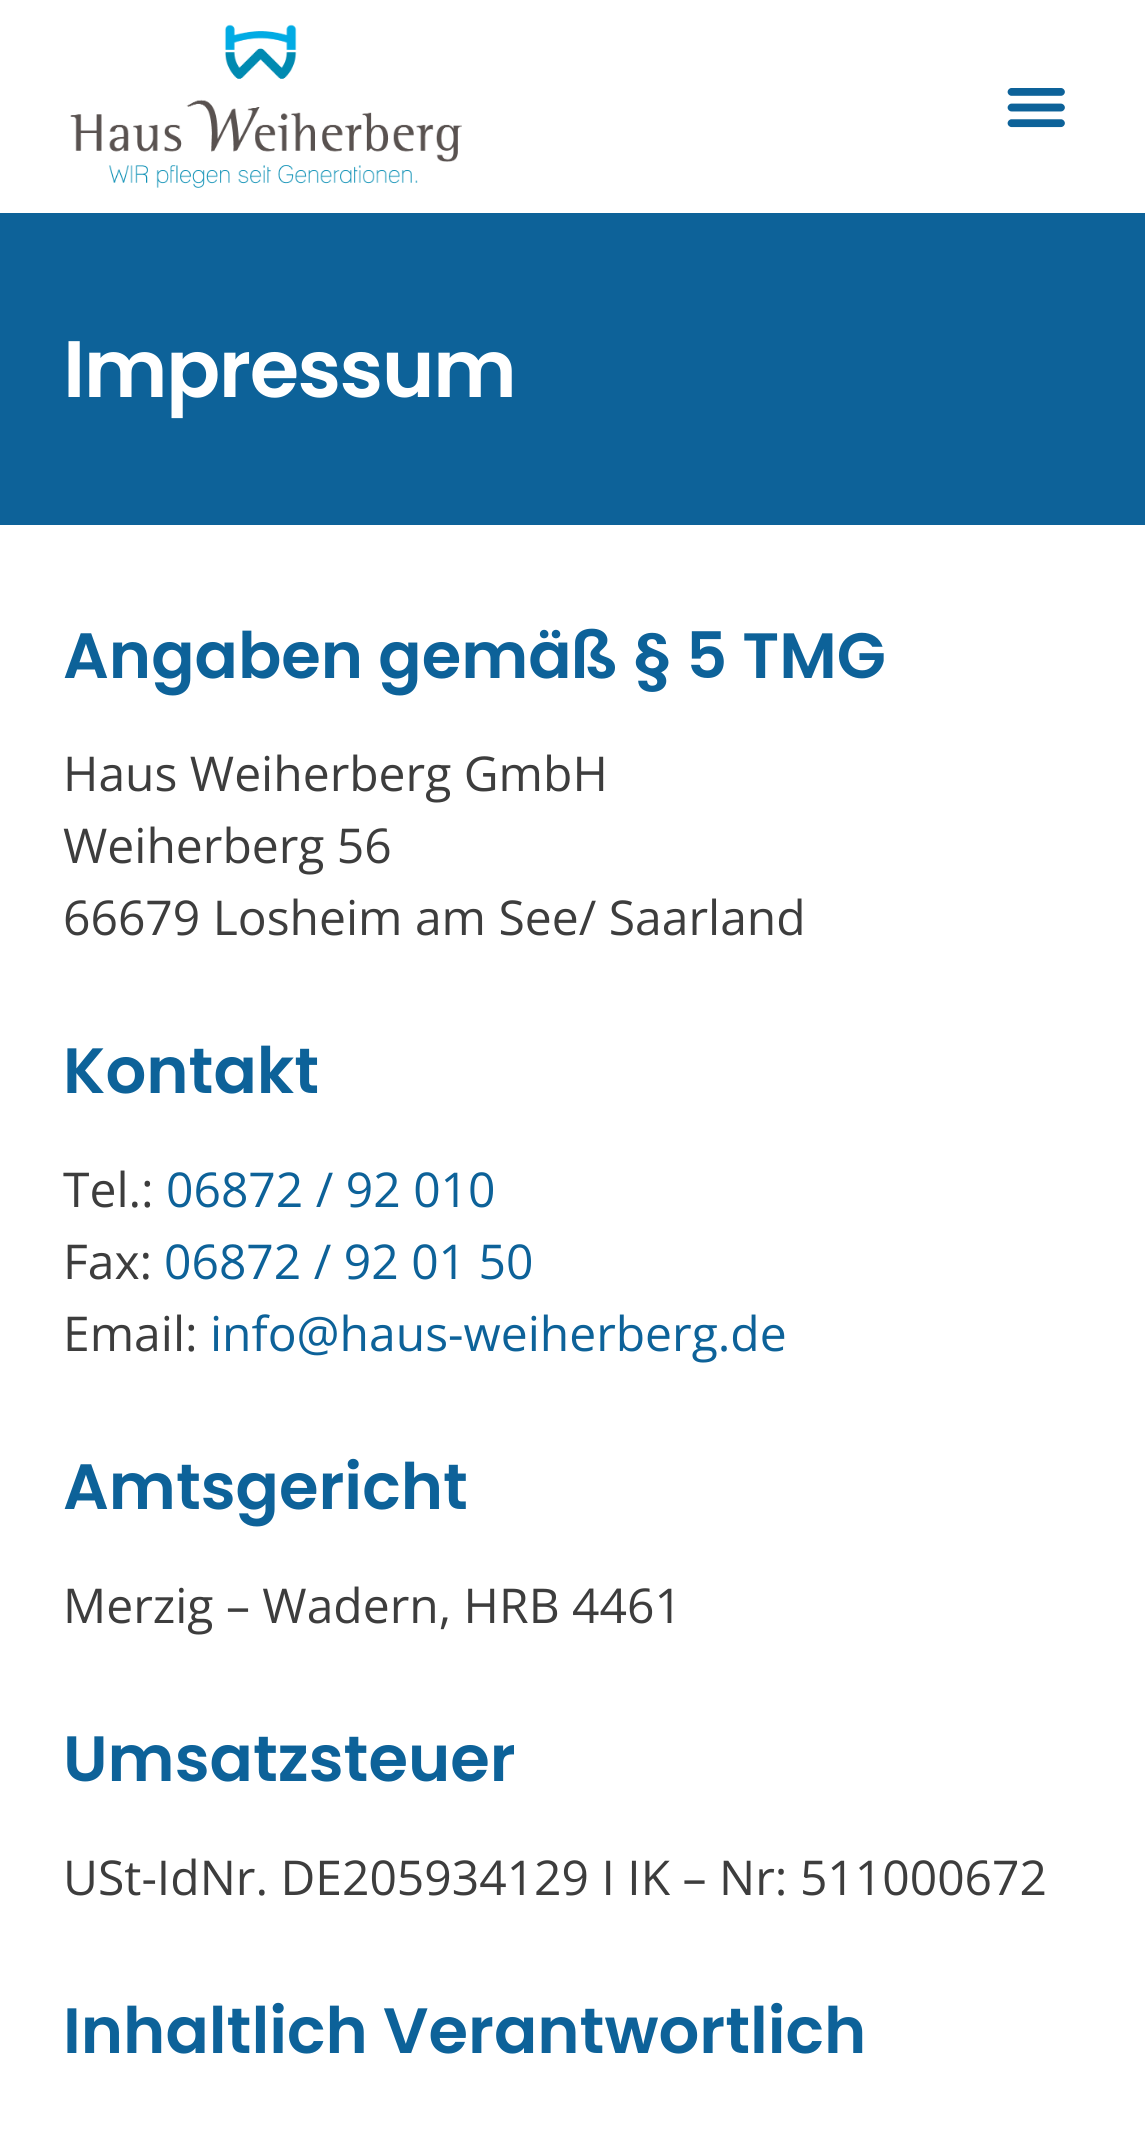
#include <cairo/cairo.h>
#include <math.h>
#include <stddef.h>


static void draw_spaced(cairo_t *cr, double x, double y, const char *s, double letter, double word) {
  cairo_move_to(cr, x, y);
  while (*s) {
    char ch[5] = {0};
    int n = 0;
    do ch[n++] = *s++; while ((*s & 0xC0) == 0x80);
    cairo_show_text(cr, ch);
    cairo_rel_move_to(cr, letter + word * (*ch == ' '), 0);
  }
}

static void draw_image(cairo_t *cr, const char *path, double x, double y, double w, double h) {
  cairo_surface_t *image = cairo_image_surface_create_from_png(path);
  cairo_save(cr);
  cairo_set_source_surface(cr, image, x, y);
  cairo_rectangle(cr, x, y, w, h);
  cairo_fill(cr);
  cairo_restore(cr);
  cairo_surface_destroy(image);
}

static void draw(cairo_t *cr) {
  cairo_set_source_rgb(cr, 1, 1, 1);
  cairo_paint(cr);
  draw_image(cr, "images/1.png", 70, 24, 392, 164);
  draw_image(cr, "images/2.png", 1007, 88, 58, 40);
  cairo_set_source_rgb(cr, 13 / 255.0, 98 / 255.0, 153 / 255.0);
  cairo_rectangle(cr, 0, 213, 1145, 312);
  cairo_fill(cr);
  cairo_select_font_face(cr, "Poppins SemiBold", CAIRO_FONT_SLANT_NORMAL, CAIRO_FONT_WEIGHT_NORMAL);
  cairo_set_font_size(cr, 80);
  cairo_set_source_rgb(cr, 1, 1, 1);
  draw_spaced(cr, 63, 397, "Impressum", -1.5, 0);
  cairo_set_font_size(cr, 64);
  cairo_set_source_rgb(cr, 13 / 255.0, 98 / 255.0, 153 / 255.0);
  cairo_move_to(cr, 63, 678);
  cairo_show_text(cr, "Angaben gemäß § 5 TMG");
  cairo_select_font_face(cr, "Open Sans", CAIRO_FONT_SLANT_NORMAL, CAIRO_FONT_WEIGHT_NORMAL);
  cairo_set_font_size(cr, 48);
  cairo_set_source_rgb(cr, 61 / 255.0, 61 / 255.0, 61 / 255.0);
  cairo_move_to(cr, 63, 791);
  cairo_show_text(cr, "Haus Weiherberg GmbH");
  cairo_move_to(cr, 63, 863);
  cairo_show_text(cr, "Weiherberg 56");
  cairo_move_to(cr, 63, 935);
  cairo_show_text(cr, "66679 Losheim am See/ Saarland");
  cairo_select_font_face(cr, "Poppins SemiBold", CAIRO_FONT_SLANT_NORMAL, CAIRO_FONT_WEIGHT_NORMAL);
  cairo_set_font_size(cr, 64);
  cairo_set_source_rgb(cr, 13 / 255.0, 98 / 255.0, 153 / 255.0);
  cairo_move_to(cr, 63, 1093);
  cairo_show_text(cr, "Kontakt");
  cairo_select_font_face(cr, "Open Sans", CAIRO_FONT_SLANT_NORMAL, CAIRO_FONT_WEIGHT_NORMAL);
  cairo_set_font_size(cr, 48);
  cairo_set_source_rgb(cr, 61 / 255.0, 61 / 255.0, 61 / 255.0);
  cairo_move_to(cr, 63, 1207);
  cairo_show_text(cr, "Tel.:");
  cairo_set_source_rgb(cr, 13 / 255.0, 98 / 255.0, 153 / 255.0);
  cairo_move_to(cr, 166, 1207);
  cairo_show_text(cr, "06872 / 92 010");
  cairo_set_source_rgb(cr, 61 / 255.0, 61 / 255.0, 61 / 255.0);
  cairo_move_to(cr, 63, 1279);
  cairo_show_text(cr, "Fax:");
  cairo_set_source_rgb(cr, 13 / 255.0, 98 / 255.0, 153 / 255.0);
  cairo_move_to(cr, 164, 1279);
  cairo_show_text(cr, "06872 / 92 01 50");
  cairo_set_source_rgb(cr, 61 / 255.0, 61 / 255.0, 61 / 255.0);
  cairo_move_to(cr, 63, 1351);
  cairo_show_text(cr, "Email:");
  cairo_set_source_rgb(cr, 13 / 255.0, 98 / 255.0, 153 / 255.0);
  cairo_move_to(cr, 210, 1351);
  cairo_show_text(cr, "info@haus-weiherberg.de");
  cairo_select_font_face(cr, "Poppins SemiBold", CAIRO_FONT_SLANT_NORMAL, CAIRO_FONT_WEIGHT_NORMAL);
  cairo_set_font_size(cr, 64);
  cairo_move_to(cr, 63, 1509);
  cairo_show_text(cr, "Amtsgericht");
  cairo_select_font_face(cr, "Open Sans", CAIRO_FONT_SLANT_NORMAL, CAIRO_FONT_WEIGHT_NORMAL);
  cairo_set_font_size(cr, 48);
  cairo_set_source_rgb(cr, 61 / 255.0, 61 / 255.0, 61 / 255.0);
  cairo_move_to(cr, 63, 1623);
  cairo_show_text(cr, "Merzig – Wadern, HRB 4461");
  cairo_select_font_face(cr, "Poppins SemiBold", CAIRO_FONT_SLANT_NORMAL, CAIRO_FONT_WEIGHT_NORMAL);
  cairo_set_font_size(cr, 64);
  cairo_set_source_rgb(cr, 13 / 255.0, 98 / 255.0, 153 / 255.0);
  cairo_move_to(cr, 63, 1781);
  cairo_show_text(cr, "Umsatzsteuer");
  cairo_select_font_face(cr, "Open Sans", CAIRO_FONT_SLANT_NORMAL, CAIRO_FONT_WEIGHT_NORMAL);
  cairo_set_font_size(cr, 48);
  cairo_set_source_rgb(cr, 61 / 255.0, 61 / 255.0, 61 / 255.0);
  cairo_move_to(cr, 63, 1895);
  cairo_show_text(cr, "USt-IdNr. DE205934129 I IK – Nr: 511000672");
  cairo_select_font_face(cr, "Poppins SemiBold", CAIRO_FONT_SLANT_NORMAL, CAIRO_FONT_WEIGHT_NORMAL);
  cairo_set_font_size(cr, 64);
  cairo_set_source_rgb(cr, 13 / 255.0, 98 / 255.0, 153 / 255.0);
  cairo_move_to(cr, 63, 2053);
  cairo_show_text(cr, "Inhaltlich Verantwortlich");
}

int main(void) {
  cairo_surface_t *surface = cairo_image_surface_create(CAIRO_FORMAT_RGB24, 1145, 2129);
  cairo_t *cr = cairo_create(surface);
  cairo_font_options_t *options = cairo_font_options_create();
  cairo_font_options_set_hint_metrics(options, CAIRO_HINT_METRICS_OFF);
  cairo_font_options_set_hint_style(options, CAIRO_HINT_STYLE_NONE);
  cairo_set_font_options(cr, options);
  cairo_set_miter_limit(cr, 4);
  draw(cr);
  cairo_surface_write_to_png(surface, "out.png");
  cairo_font_options_destroy(options);
  cairo_destroy(cr);
  cairo_surface_destroy(surface);
  return 0;
}
